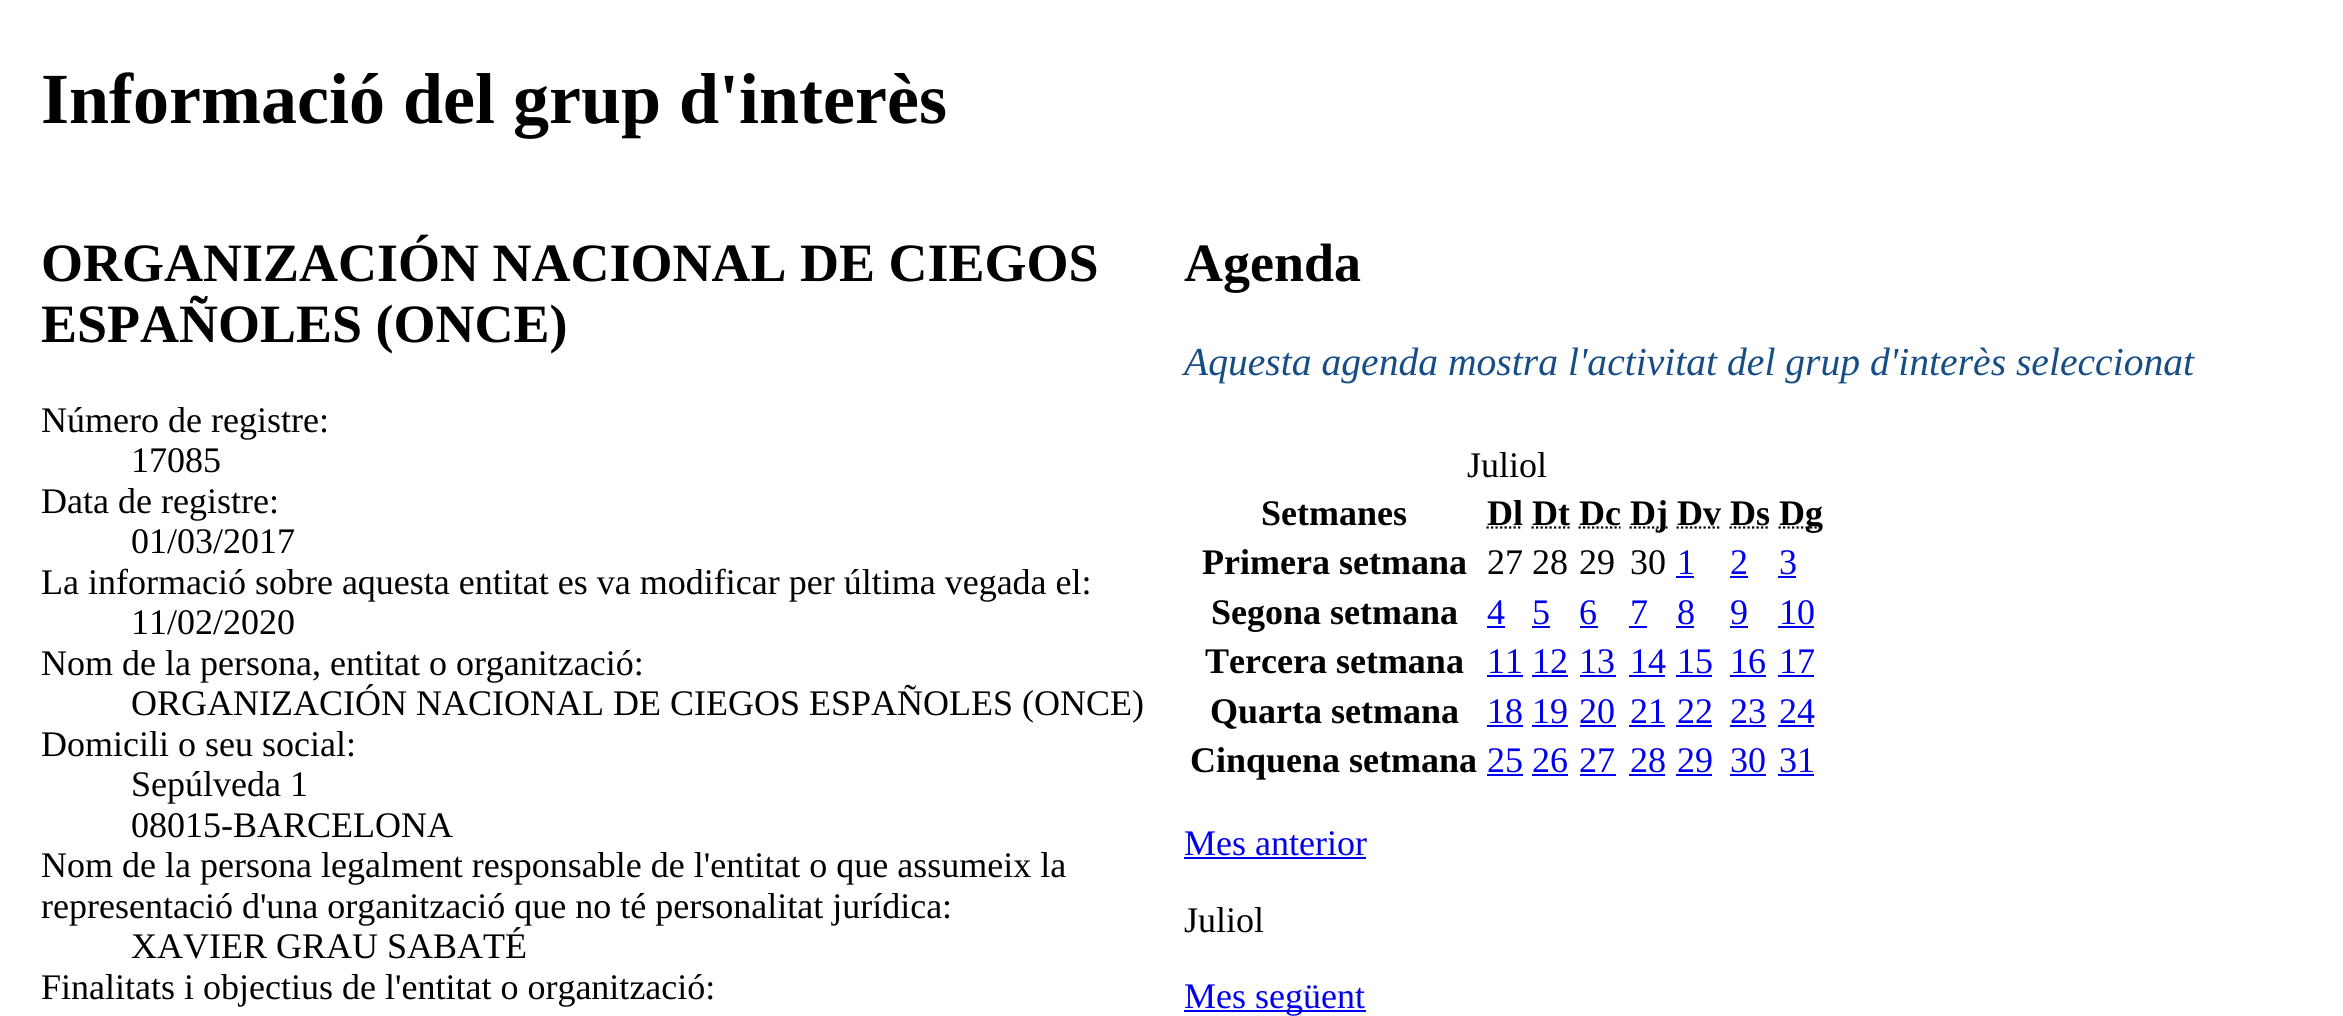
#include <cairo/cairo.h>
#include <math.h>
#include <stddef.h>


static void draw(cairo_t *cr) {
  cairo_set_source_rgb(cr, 1, 1, 1);
  cairo_paint(cr);
  cairo_new_path(cr);
  cairo_move_to(cr, 1486.5, 527.5);
  cairo_line_to(cr, 1522.5, 527.5);
  cairo_set_source_rgb(cr, 0, 0, 0);
  cairo_set_line_width(cr, 2.2);
  cairo_set_dash(cr, (double[]){2.25, 2.25}, 2, 0);
  cairo_stroke(cr);
  cairo_new_path(cr);
  cairo_move_to(cr, 1629.5, 527.5);
  cairo_line_to(cr, 1667.5, 527.5);
  cairo_stroke(cr);
  cairo_new_path(cr);
  cairo_move_to(cr, 1778.5, 527.5);
  cairo_line_to(cr, 1822.5, 527.5);
  cairo_stroke(cr);
  cairo_new_path(cr);
  cairo_move_to(cr, 1531.5, 527.5);
  cairo_line_to(cr, 1569.5, 527.5);
  cairo_stroke(cr);
  cairo_new_path(cr);
  cairo_move_to(cr, 1578.5, 527.5);
  cairo_line_to(cr, 1620.5, 527.5);
  cairo_stroke(cr);
  cairo_new_path(cr);
  cairo_move_to(cr, 1676.5, 527.5);
  cairo_line_to(cr, 1720.5, 527.5);
  cairo_stroke(cr);
  cairo_new_path(cr);
  cairo_move_to(cr, 1729.5, 527.5);
  cairo_line_to(cr, 1769.5, 527.5);
  cairo_stroke(cr);
  cairo_set_source_rgb(cr, 0, 0, 238 / 255.0);
  cairo_rectangle(cr, 1676, 576, 18, 2);
  cairo_fill(cr);
  cairo_rectangle(cr, 1730, 576, 18, 2);
  cairo_fill(cr);
  cairo_rectangle(cr, 1778, 576, 18, 2);
  cairo_fill(cr);
  cairo_rectangle(cr, 1487, 626, 18, 2);
  cairo_fill(cr);
  cairo_rectangle(cr, 1532, 626, 18, 2);
  cairo_fill(cr);
  cairo_rectangle(cr, 1580, 626, 18, 2);
  cairo_fill(cr);
  cairo_rectangle(cr, 1629, 626, 18, 2);
  cairo_fill(cr);
  cairo_rectangle(cr, 1676, 626, 18, 2);
  cairo_fill(cr);
  cairo_rectangle(cr, 1730, 626, 18, 2);
  cairo_fill(cr);
  cairo_rectangle(cr, 1778, 626, 36, 2);
  cairo_fill(cr);
  cairo_rectangle(cr, 1487, 675, 36, 2);
  cairo_fill(cr);
  cairo_rectangle(cr, 1580, 675, 36, 2);
  cairo_fill(cr);
  cairo_rectangle(cr, 1629, 675, 36, 2);
  cairo_fill(cr);
  cairo_rectangle(cr, 1676, 675, 36, 2);
  cairo_fill(cr);
  cairo_rectangle(cr, 1730, 675, 36, 2);
  cairo_fill(cr);
  cairo_rectangle(cr, 1778, 675, 36, 2);
  cairo_fill(cr);
  cairo_rectangle(cr, 1532, 675, 36, 2);
  cairo_fill(cr);
  cairo_rectangle(cr, 1487, 725, 36, 2);
  cairo_fill(cr);
  cairo_rectangle(cr, 1580, 725, 36, 2);
  cairo_fill(cr);
  cairo_rectangle(cr, 1629, 725, 36, 2);
  cairo_fill(cr);
  cairo_rectangle(cr, 1676, 725, 36, 2);
  cairo_fill(cr);
  cairo_rectangle(cr, 1730, 725, 36, 2);
  cairo_fill(cr);
  cairo_rectangle(cr, 1778, 725, 36, 2);
  cairo_fill(cr);
  cairo_rectangle(cr, 1532, 725, 36, 2);
  cairo_fill(cr);
  cairo_rectangle(cr, 1487, 774, 36, 2);
  cairo_fill(cr);
  cairo_rectangle(cr, 1580, 774, 36, 2);
  cairo_fill(cr);
  cairo_rectangle(cr, 1629, 774, 36, 2);
  cairo_fill(cr);
  cairo_rectangle(cr, 1676, 774, 36, 2);
  cairo_fill(cr);
  cairo_rectangle(cr, 1730, 774, 36, 2);
  cairo_fill(cr);
  cairo_rectangle(cr, 1778, 774, 36, 2);
  cairo_fill(cr);
  cairo_rectangle(cr, 1532, 774, 36, 2);
  cairo_fill(cr);
  cairo_rectangle(cr, 1184, 857, 182, 2);
  cairo_fill(cr);
  cairo_rectangle(cr, 1184, 1010, 182, 2);
  cairo_fill(cr);
  cairo_select_font_face(cr, "Liberation Serif", CAIRO_FONT_SLANT_NORMAL, CAIRO_FONT_WEIGHT_BOLD);
  cairo_set_font_size(cr, 72);
  cairo_set_source_rgb(cr, 0, 0, 0);
  cairo_move_to(cr, 41, 123);
  cairo_show_text(cr, "Informació del grup d'interès");
  cairo_set_font_size(cr, 54);
  cairo_move_to(cr, 41, 281);
  cairo_show_text(cr, "ORGANIZACIÓN NACIONAL DE CIEGOS");
  cairo_move_to(cr, 41, 342);
  cairo_show_text(cr, "ESPAÑOLES (ONCE)");
  cairo_select_font_face(cr, "Liberation Serif", CAIRO_FONT_SLANT_NORMAL, CAIRO_FONT_WEIGHT_NORMAL);
  cairo_set_font_size(cr, 36);
  cairo_move_to(cr, 41, 432);
  cairo_show_text(cr, "Número de registre:");
  cairo_move_to(cr, 131, 472);
  cairo_show_text(cr, "17085");
  cairo_move_to(cr, 41, 513);
  cairo_show_text(cr, "Data de registre:");
  cairo_move_to(cr, 131, 553);
  cairo_show_text(cr, "01/03/2017");
  cairo_move_to(cr, 41, 594);
  cairo_show_text(cr, "La informació sobre aquesta entitat es va modificar per última vegada el:");
  cairo_move_to(cr, 131, 634);
  cairo_show_text(cr, "11/02/2020");
  cairo_move_to(cr, 41, 675);
  cairo_show_text(cr, "Nom de la persona, entitat o organització:");
  cairo_move_to(cr, 131, 715);
  cairo_show_text(cr, "ORGANIZACIÓN NACIONAL DE CIEGOS ESPAÑOLES (ONCE)");
  cairo_move_to(cr, 41, 756);
  cairo_show_text(cr, "Domicili o seu social:");
  cairo_move_to(cr, 131, 796);
  cairo_show_text(cr, "Sepúlveda 1");
  cairo_move_to(cr, 131, 837);
  cairo_show_text(cr, "08015-BARCELONA");
  cairo_move_to(cr, 41, 877);
  cairo_show_text(cr, "Nom de la persona legalment responsable de l'entitat o que assumeix la");
  cairo_move_to(cr, 41, 918);
  cairo_show_text(cr, "representació d'una organització que no té personalitat jurídica:");
  cairo_move_to(cr, 131, 958);
  cairo_show_text(cr, "XAVIER GRAU SABATÉ");
  cairo_move_to(cr, 41, 999);
  cairo_show_text(cr, "Finalitats i objectius de l'entitat o organització:");
  cairo_select_font_face(cr, "Liberation Serif", CAIRO_FONT_SLANT_NORMAL, CAIRO_FONT_WEIGHT_BOLD);
  cairo_set_font_size(cr, 54);
  cairo_move_to(cr, 1184, 281);
  cairo_show_text(cr, "Agenda");
  cairo_select_font_face(cr, "Liberation Serif", CAIRO_FONT_SLANT_ITALIC, CAIRO_FONT_WEIGHT_NORMAL);
  cairo_set_font_size(cr, 39.6);
  cairo_set_source_rgb(cr, 22 / 255.0, 77 / 255.0, 134 / 255.0);
  cairo_move_to(cr, 1184, 375);
  cairo_show_text(cr, "Aquesta agenda mostra l'activitat del grup d'interès seleccionat");
  cairo_select_font_face(cr, "Liberation Serif", CAIRO_FONT_SLANT_NORMAL, CAIRO_FONT_WEIGHT_NORMAL);
  cairo_set_font_size(cr, 36);
  cairo_set_source_rgb(cr, 0, 0, 0);
  cairo_move_to(cr, 1467, 477);
  cairo_show_text(cr, "Juliol");
  cairo_select_font_face(cr, "Liberation Serif", CAIRO_FONT_SLANT_NORMAL, CAIRO_FONT_WEIGHT_BOLD);
  cairo_move_to(cr, 1261, 525);
  cairo_show_text(cr, "Setmanes");
  cairo_move_to(cr, 1487, 525);
  cairo_show_text(cr, "Dl Dt Dc");
  cairo_move_to(cr, 1630, 525);
  cairo_show_text(cr, "Dj Dv Ds");
  cairo_move_to(cr, 1779, 525);
  cairo_show_text(cr, "Dg");
  cairo_move_to(cr, 1202, 574);
  cairo_show_text(cr, "Primera setmana");
  cairo_select_font_face(cr, "Liberation Serif", CAIRO_FONT_SLANT_NORMAL, CAIRO_FONT_WEIGHT_NORMAL);
  cairo_move_to(cr, 1487, 574);
  cairo_show_text(cr, "27 28");
  cairo_move_to(cr, 1579, 574);
  cairo_show_text(cr, "29");
  cairo_move_to(cr, 1630, 574);
  cairo_show_text(cr, "30");
  cairo_set_source_rgb(cr, 0, 0, 238 / 255.0);
  cairo_move_to(cr, 1677, 574);
  cairo_show_text(cr, "1");
  cairo_move_to(cr, 1730, 574);
  cairo_show_text(cr, "2");
  cairo_move_to(cr, 1779, 574);
  cairo_show_text(cr, "3");
  cairo_select_font_face(cr, "Liberation Serif", CAIRO_FONT_SLANT_NORMAL, CAIRO_FONT_WEIGHT_BOLD);
  cairo_set_source_rgb(cr, 0, 0, 0);
  cairo_move_to(cr, 1211, 624);
  cairo_show_text(cr, "Segona setmana");
  cairo_select_font_face(cr, "Liberation Serif", CAIRO_FONT_SLANT_NORMAL, CAIRO_FONT_WEIGHT_NORMAL);
  cairo_set_source_rgb(cr, 0, 0, 238 / 255.0);
  cairo_move_to(cr, 1487, 624);
  cairo_show_text(cr, "4");
  cairo_move_to(cr, 1532, 624);
  cairo_show_text(cr, "5");
  cairo_move_to(cr, 1579, 624);
  cairo_show_text(cr, "6");
  cairo_move_to(cr, 1630, 624);
  cairo_show_text(cr, "7");
  cairo_move_to(cr, 1677, 624);
  cairo_show_text(cr, "8");
  cairo_move_to(cr, 1730, 624);
  cairo_show_text(cr, "9");
  cairo_move_to(cr, 1779, 624);
  cairo_show_text(cr, "10");
  cairo_select_font_face(cr, "Liberation Serif", CAIRO_FONT_SLANT_NORMAL, CAIRO_FONT_WEIGHT_BOLD);
  cairo_set_source_rgb(cr, 0, 0, 0);
  cairo_move_to(cr, 1205, 673);
  cairo_show_text(cr, "Tercera setmana");
  cairo_select_font_face(cr, "Liberation Serif", CAIRO_FONT_SLANT_NORMAL, CAIRO_FONT_WEIGHT_NORMAL);
  cairo_set_source_rgb(cr, 0, 0, 238 / 255.0);
  cairo_move_to(cr, 1487, 673);
  cairo_show_text(cr, "11 12");
  cairo_move_to(cr, 1579, 673);
  cairo_show_text(cr, "13");
  cairo_move_to(cr, 1630, 673);
  cairo_show_text(cr, "14");
  cairo_move_to(cr, 1677, 673);
  cairo_show_text(cr, "15");
  cairo_move_to(cr, 1730, 673);
  cairo_show_text(cr, "16");
  cairo_move_to(cr, 1779, 673);
  cairo_show_text(cr, "17");
  cairo_select_font_face(cr, "Liberation Serif", CAIRO_FONT_SLANT_NORMAL, CAIRO_FONT_WEIGHT_BOLD);
  cairo_set_source_rgb(cr, 0, 0, 0);
  cairo_move_to(cr, 1210, 723);
  cairo_show_text(cr, "Quarta setmana");
  cairo_select_font_face(cr, "Liberation Serif", CAIRO_FONT_SLANT_NORMAL, CAIRO_FONT_WEIGHT_NORMAL);
  cairo_set_source_rgb(cr, 0, 0, 238 / 255.0);
  cairo_move_to(cr, 1487, 723);
  cairo_show_text(cr, "18 19");
  cairo_move_to(cr, 1579, 723);
  cairo_show_text(cr, "20");
  cairo_move_to(cr, 1630, 723);
  cairo_show_text(cr, "21");
  cairo_move_to(cr, 1677, 723);
  cairo_show_text(cr, "22");
  cairo_move_to(cr, 1730, 723);
  cairo_show_text(cr, "23");
  cairo_move_to(cr, 1779, 723);
  cairo_show_text(cr, "24");
  cairo_select_font_face(cr, "Liberation Serif", CAIRO_FONT_SLANT_NORMAL, CAIRO_FONT_WEIGHT_BOLD);
  cairo_set_source_rgb(cr, 0, 0, 0);
  cairo_move_to(cr, 1190, 772);
  cairo_show_text(cr, "Cinquena setmana");
  cairo_select_font_face(cr, "Liberation Serif", CAIRO_FONT_SLANT_NORMAL, CAIRO_FONT_WEIGHT_NORMAL);
  cairo_set_source_rgb(cr, 0, 0, 238 / 255.0);
  cairo_move_to(cr, 1487, 772);
  cairo_show_text(cr, "25 26");
  cairo_move_to(cr, 1579, 772);
  cairo_show_text(cr, "27");
  cairo_move_to(cr, 1630, 772);
  cairo_show_text(cr, "28");
  cairo_move_to(cr, 1677, 772);
  cairo_show_text(cr, "29");
  cairo_move_to(cr, 1730, 772);
  cairo_show_text(cr, "30");
  cairo_move_to(cr, 1779, 772);
  cairo_show_text(cr, "31");
  cairo_move_to(cr, 1184, 855);
  cairo_show_text(cr, "Mes anterior");
  cairo_set_source_rgb(cr, 0, 0, 0);
  cairo_move_to(cr, 1184, 932);
  cairo_show_text(cr, "Juliol");
  cairo_set_source_rgb(cr, 0, 0, 238 / 255.0);
  cairo_move_to(cr, 1184, 1008);
  cairo_show_text(cr, "Mes següent");
}

int main(void) {
  cairo_surface_t *surface = cairo_image_surface_create(CAIRO_FORMAT_RGB24, 2343, 1016);
  cairo_t *cr = cairo_create(surface);
  cairo_font_options_t *options = cairo_font_options_create();
  cairo_font_options_set_hint_metrics(options, CAIRO_HINT_METRICS_OFF);
  cairo_font_options_set_hint_style(options, CAIRO_HINT_STYLE_NONE);
  cairo_set_font_options(cr, options);
  cairo_set_miter_limit(cr, 4);
  draw(cr);
  cairo_surface_write_to_png(surface, "out.png");
  cairo_font_options_destroy(options);
  cairo_destroy(cr);
  cairo_surface_destroy(surface);
  return 0;
}
